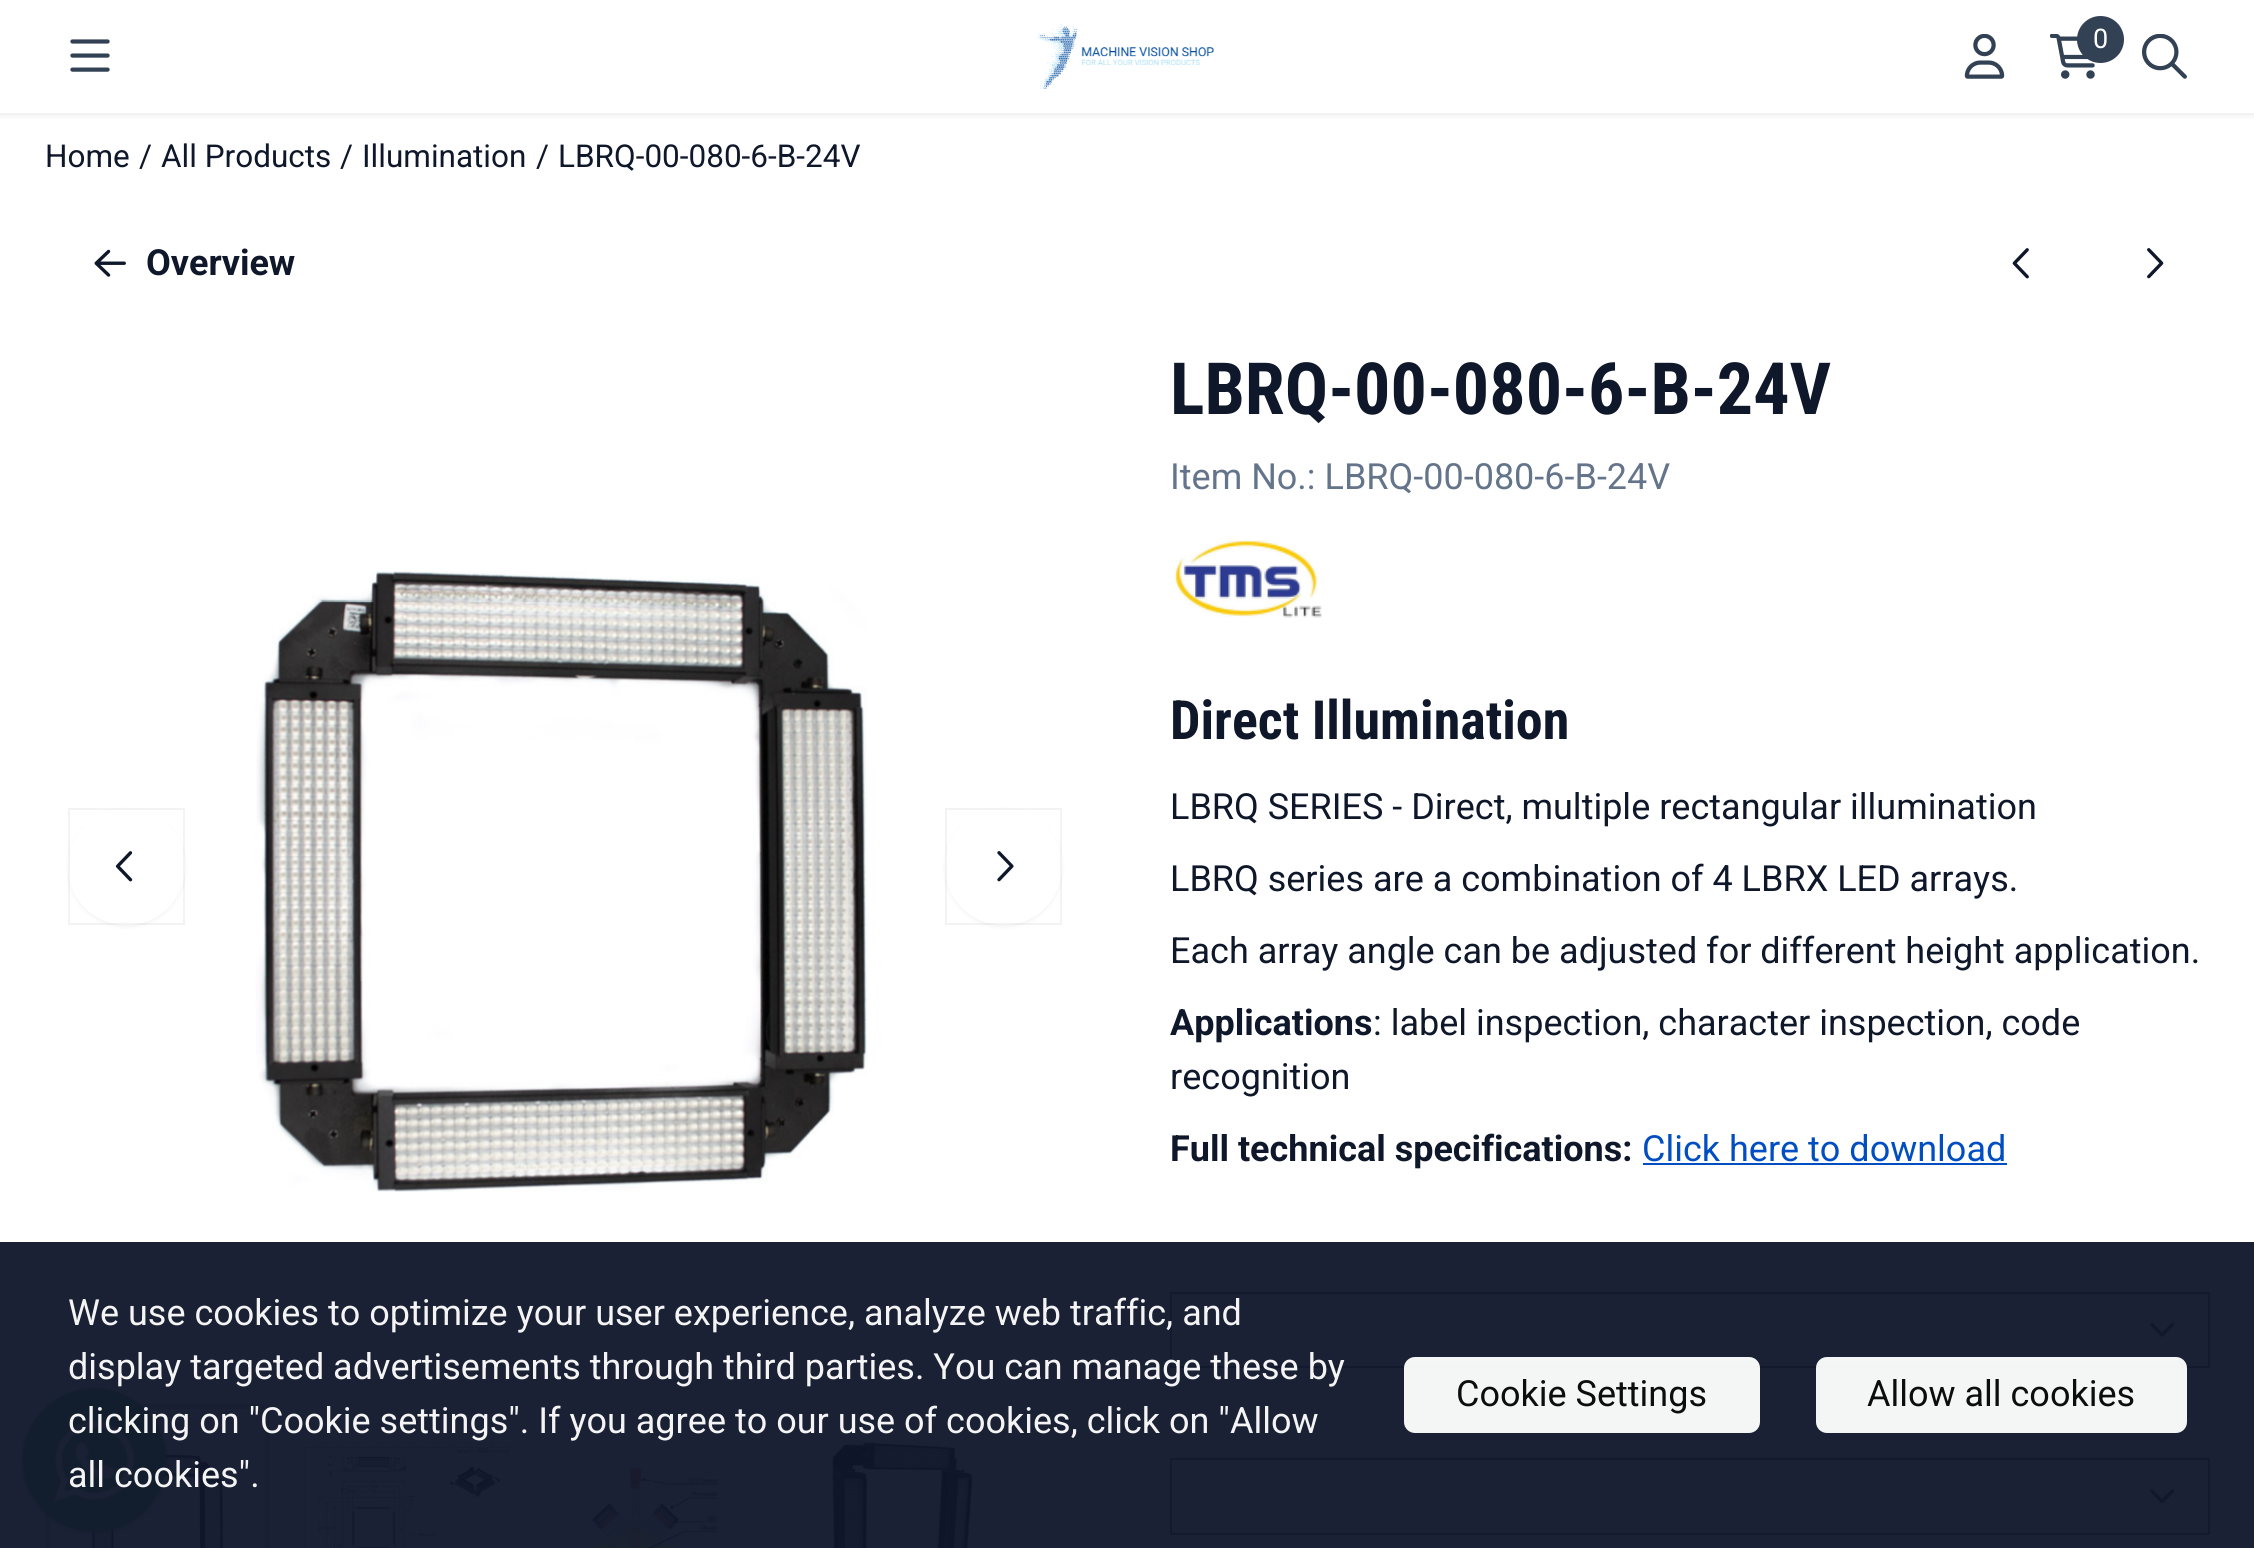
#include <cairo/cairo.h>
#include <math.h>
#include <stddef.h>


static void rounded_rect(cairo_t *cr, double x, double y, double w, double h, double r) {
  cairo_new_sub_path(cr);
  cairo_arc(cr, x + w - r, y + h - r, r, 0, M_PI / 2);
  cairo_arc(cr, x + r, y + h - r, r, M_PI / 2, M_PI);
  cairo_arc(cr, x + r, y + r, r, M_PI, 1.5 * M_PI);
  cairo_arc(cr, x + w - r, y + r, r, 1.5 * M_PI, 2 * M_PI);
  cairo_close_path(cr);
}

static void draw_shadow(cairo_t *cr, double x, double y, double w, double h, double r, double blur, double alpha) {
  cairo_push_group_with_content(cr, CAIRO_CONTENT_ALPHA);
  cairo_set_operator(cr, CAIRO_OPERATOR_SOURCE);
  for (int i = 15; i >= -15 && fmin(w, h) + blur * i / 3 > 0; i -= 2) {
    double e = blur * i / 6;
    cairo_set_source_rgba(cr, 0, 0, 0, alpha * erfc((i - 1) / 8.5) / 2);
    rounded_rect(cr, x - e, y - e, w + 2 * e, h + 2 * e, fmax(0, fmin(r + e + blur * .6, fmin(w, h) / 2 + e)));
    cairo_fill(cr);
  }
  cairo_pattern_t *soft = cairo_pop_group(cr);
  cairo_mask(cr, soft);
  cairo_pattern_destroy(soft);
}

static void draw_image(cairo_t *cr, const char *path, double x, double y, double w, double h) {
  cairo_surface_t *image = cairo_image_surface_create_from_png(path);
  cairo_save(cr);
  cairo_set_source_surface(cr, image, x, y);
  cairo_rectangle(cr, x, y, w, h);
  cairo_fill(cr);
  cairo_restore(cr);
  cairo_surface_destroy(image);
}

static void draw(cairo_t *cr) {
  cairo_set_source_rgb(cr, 1, 1, 1);
  cairo_paint(cr);
  cairo_set_source_rgb(cr, 0, 0, 0);
  draw_shadow(cr, 0, 2, 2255, 115, 0, 2, 0.05);
  cairo_set_source_rgb(cr, 1, 1, 1);
  cairo_rectangle(cr, 0, 0, 2254, 113);
  cairo_fill(cr);
  cairo_set_source_rgb(cr, 242 / 255.0, 242 / 255.0, 242 / 255.0);
  cairo_rectangle(cr, 0, 113, 2254, 2);
  cairo_fill(cr);
  draw_image(cr, "images/1.png", 70, 39, 40, 33);
  draw_image(cr, "images/2.png", 1037, 24, 177, 65);
  draw_image(cr, "images/3.png", 1964, 34, 41, 45);
  draw_image(cr, "images/4.png", 2050, 34, 45, 45);
  cairo_set_source_rgb(cr, 51 / 255.0, 65 / 255.0, 85 / 255.0);
  cairo_arc(cr, 2100.5, 39.5, 23.5, 0, 2 * M_PI);
  cairo_fill(cr);
  draw_image(cr, "images/5.png", 2142, 34, 45, 45);
  draw_image(cr, "images/6.png", 94, 249, 32, 28);
  draw_image(cr, "images/7.png", 2012, 248, 17, 31);
  draw_image(cr, "images/8.png", 2147, 248, 17, 31);
  cairo_save(cr);
  cairo_set_fill_rule(cr, CAIRO_FILL_RULE_EVEN_ODD);
  cairo_new_path(cr);
  cairo_move_to(cr, 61, 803);
  cairo_line_to(cr, 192, 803);
  cairo_line_to(cr, 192, 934);
  cairo_line_to(cr, 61, 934);
  cairo_close_path(cr);
  cairo_move_to(cr, 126.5, 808);
  cairo_curve_to(cr, 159, 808, 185, 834, 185, 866.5);
  cairo_curve_to(cr, 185, 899, 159, 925, 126.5, 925);
  cairo_curve_to(cr, 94, 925, 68, 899, 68, 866.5);
  cairo_curve_to(cr, 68, 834, 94, 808, 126.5, 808);
  cairo_close_path(cr);
  cairo_clip(cr);
  cairo_set_source_rgb(cr, 0, 0, 0);
  draw_shadow(cr, 68, 810, 117, 117, 58.5, 2, 0.05);
  cairo_restore(cr);
  cairo_set_source_rgba(cr, 1, 1, 1, 0.85);
  cairo_arc(cr, 126.5, 866.5, 58.5, 0, 2 * M_PI);
  cairo_fill(cr);
  cairo_rectangle(cr, 69, 809, 115, 115);
  cairo_set_source_rgba(cr, 0, 0, 0, 0.05);
  cairo_stroke(cr);
  draw_image(cr, "images/9.png", 115, 851, 18, 31);
  draw_image(cr, "images/10.png", 256, 571, 611, 621);
  cairo_save(cr);
  cairo_set_fill_rule(cr, CAIRO_FILL_RULE_EVEN_ODD);
  cairo_new_path(cr);
  cairo_move_to(cr, 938, 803);
  cairo_line_to(cr, 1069, 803);
  cairo_line_to(cr, 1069, 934);
  cairo_line_to(cr, 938, 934);
  cairo_close_path(cr);
  cairo_move_to(cr, 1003.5, 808);
  cairo_curve_to(cr, 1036, 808, 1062, 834, 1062, 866.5);
  cairo_curve_to(cr, 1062, 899, 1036, 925, 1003.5, 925);
  cairo_curve_to(cr, 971, 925, 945, 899, 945, 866.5);
  cairo_curve_to(cr, 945, 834, 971, 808, 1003.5, 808);
  cairo_close_path(cr);
  cairo_clip(cr);
  cairo_set_source_rgb(cr, 0, 0, 0);
  draw_shadow(cr, 945, 810, 117, 117, 58.5, 2, 0.05);
  cairo_restore(cr);
  cairo_set_source_rgba(cr, 1, 1, 1, 0.85);
  cairo_arc(cr, 1003.5, 866.5, 58.5, 0, 2 * M_PI);
  cairo_fill(cr);
  cairo_rectangle(cr, 946, 809, 115, 115);
  cairo_set_source_rgba(cr, 0, 0, 0, 0.05);
  cairo_stroke(cr);
  draw_image(cr, "images/11.png", 997, 851, 17, 31);
  draw_image(cr, "images/12.png", 90, 1452, 133, 96);
  cairo_rectangle(cr, 47.5, 1406.5, 220, 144);
  cairo_set_source_rgb(cr, 203 / 255.0, 213 / 255.0, 225 / 255.0);
  cairo_set_line_width(cr, 5);
  cairo_stroke(cr);
  draw_image(cr, "images/13.png", 299, 1440, 216, 108);
  draw_image(cr, "images/14.png", 591, 1460, 127, 88);
  draw_image(cr, "images/15.png", 829, 1440, 188, 108);
  draw_image(cr, "images/16.png", 1174, 540, 148, 78);
  cairo_set_source_rgb(cr, 0, 78 / 255.0, 194 / 255.0);
  cairo_rectangle(cr, 1643, 1163, 364, 2);
  cairo_fill(cr);
  cairo_new_path(cr);
  cairo_move_to(cr, 2152, 1324.5);
  cairo_line_to(cr, 2162, 1335);
  cairo_line_to(cr, 2172.5, 1324.5);
  cairo_set_source_rgb(cr, 52 / 255.0, 58 / 255.0, 64 / 255.0);
  cairo_set_line_width(cr, 3.4);
  cairo_set_line_cap(cr, CAIRO_LINE_CAP_ROUND);
  cairo_set_line_join(cr, CAIRO_LINE_JOIN_ROUND);
  cairo_stroke(cr);
  cairo_rectangle(cr, 1171, 1293, 1038, 74);
  cairo_set_source_rgb(cr, 100 / 255.0, 116 / 255.0, 139 / 255.0);
  cairo_set_line_width(cr, 2);
  cairo_set_line_cap(cr, CAIRO_LINE_CAP_BUTT);
  cairo_set_line_join(cr, CAIRO_LINE_JOIN_MITER);
  cairo_stroke(cr);
  cairo_new_path(cr);
  cairo_move_to(cr, 2152, 1491);
  cairo_line_to(cr, 2162, 1501.5);
  cairo_line_to(cr, 2172.5, 1491);
  cairo_set_source_rgb(cr, 52 / 255.0, 58 / 255.0, 64 / 255.0);
  cairo_set_line_width(cr, 3.4);
  cairo_set_line_cap(cr, CAIRO_LINE_CAP_ROUND);
  cairo_set_line_join(cr, CAIRO_LINE_JOIN_ROUND);
  cairo_stroke(cr);
  cairo_rectangle(cr, 1171, 1459, 1038, 75);
  cairo_set_source_rgb(cr, 100 / 255.0, 116 / 255.0, 139 / 255.0);
  cairo_set_line_width(cr, 2);
  cairo_set_line_cap(cr, CAIRO_LINE_CAP_BUTT);
  cairo_set_line_join(cr, CAIRO_LINE_JOIN_MITER);
  cairo_stroke(cr);
  draw_image(cr, "images/17.png", 20, 1387, 149, 147);
  cairo_set_source_rgba(cr, 15 / 255.0, 23 / 255.0, 42 / 255.0, 0.95);
  cairo_rectangle(cr, 0, 1242, 2254, 306);
  cairo_fill(cr);
  cairo_set_source_rgba(cr, 1, 1, 1, 0.95);
  rounded_rect(cr, 1404, 1357, 356, 76, 11);
  cairo_fill(cr);
  rounded_rect(cr, 1816, 1357, 371, 76, 11);
  cairo_fill(cr);
  cairo_select_font_face(cr, "Roboto", CAIRO_FONT_SLANT_NORMAL, CAIRO_FONT_WEIGHT_NORMAL);
  cairo_set_font_size(cr, 27);
  cairo_set_source_rgb(cr, 1, 1, 1);
  cairo_move_to(cr, 2093, 48);
  cairo_show_text(cr, "0");
  cairo_set_font_size(cr, 31.5);
  cairo_set_source_rgb(cr, 15 / 255.0, 23 / 255.0, 42 / 255.0);
  cairo_move_to(cr, 45, 167);
  cairo_show_text(cr, "Home");
  cairo_move_to(cr, 139, 167);
  cairo_show_text(cr, "/");
  cairo_move_to(cr, 161, 167);
  cairo_show_text(cr, "All Products");
  cairo_move_to(cr, 340, 167);
  cairo_show_text(cr, "/");
  cairo_move_to(cr, 362, 167);
  cairo_show_text(cr, "Illumination");
  cairo_move_to(cr, 536, 167);
  cairo_show_text(cr, "/");
  cairo_move_to(cr, 558, 167);
  cairo_show_text(cr, "LBRQ-00-080-6-B-24V");
  cairo_select_font_face(cr, "Roboto", CAIRO_FONT_SLANT_NORMAL, CAIRO_FONT_WEIGHT_BOLD);
  cairo_set_font_size(cr, 36);
  cairo_move_to(cr, 146, 275);
  cairo_show_text(cr, "Overview");
  cairo_select_font_face(cr, "Roboto Condensed", CAIRO_FONT_SLANT_NORMAL, CAIRO_FONT_WEIGHT_BOLD);
  cairo_set_font_size(cr, 72);
  cairo_move_to(cr, 1170, 414);
  cairo_show_text(cr, "LBRQ-00-080-6-B-24V");
  cairo_select_font_face(cr, "Roboto", CAIRO_FONT_SLANT_NORMAL, CAIRO_FONT_WEIGHT_NORMAL);
  cairo_set_font_size(cr, 36);
  cairo_set_source_rgb(cr, 100 / 255.0, 116 / 255.0, 139 / 255.0);
  cairo_move_to(cr, 1170, 489);
  cairo_show_text(cr, "Item No.: LBRQ-00-080-6-B-24V");
  cairo_select_font_face(cr, "Roboto Condensed", CAIRO_FONT_SLANT_NORMAL, CAIRO_FONT_WEIGHT_BOLD);
  cairo_set_font_size(cr, 54);
  cairo_set_source_rgb(cr, 15 / 255.0, 23 / 255.0, 42 / 255.0);
  cairo_move_to(cr, 1170, 739);
  cairo_show_text(cr, "Direct Illumination");
  cairo_select_font_face(cr, "Roboto", CAIRO_FONT_SLANT_NORMAL, CAIRO_FONT_WEIGHT_NORMAL);
  cairo_set_font_size(cr, 36);
  cairo_move_to(cr, 1170, 819);
  cairo_show_text(cr, "LBRQ SERIES - Direct, multiple rectangular illumination");
  cairo_move_to(cr, 1170, 891);
  cairo_show_text(cr, "LBRQ series are a combination of 4 LBRX LED arrays.");
  cairo_move_to(cr, 1170, 963);
  cairo_show_text(cr, "Each array angle can be adjusted for different height application.");
  cairo_select_font_face(cr, "Roboto", CAIRO_FONT_SLANT_NORMAL, CAIRO_FONT_WEIGHT_BOLD);
  cairo_move_to(cr, 1170, 1035);
  cairo_show_text(cr, "Applications");
  cairo_select_font_face(cr, "Roboto", CAIRO_FONT_SLANT_NORMAL, CAIRO_FONT_WEIGHT_NORMAL);
  cairo_move_to(cr, 1373, 1035);
  cairo_show_text(cr, ": label inspection, character inspection, code");
  cairo_move_to(cr, 1170, 1089);
  cairo_show_text(cr, "recognition");
  cairo_select_font_face(cr, "Roboto", CAIRO_FONT_SLANT_NORMAL, CAIRO_FONT_WEIGHT_BOLD);
  cairo_move_to(cr, 1170, 1161);
  cairo_show_text(cr, "Full technical specifications:");
  cairo_select_font_face(cr, "Roboto", CAIRO_FONT_SLANT_NORMAL, CAIRO_FONT_WEIGHT_NORMAL);
  cairo_set_source_rgb(cr, 0, 78 / 255.0, 194 / 255.0);
  cairo_move_to(cr, 1642, 1161);
  cairo_show_text(cr, "Click here to download");
  cairo_set_source_rgb(cr, 244 / 255.0, 244 / 255.0, 245 / 255.0);
  cairo_move_to(cr, 68, 1325);
  cairo_show_text(cr, "We use cookies to optimize your user experience, analyze web traffic, and");
  cairo_move_to(cr, 68, 1379);
  cairo_show_text(cr, "display targeted advertisements through third parties. You can manage these by");
  cairo_move_to(cr, 68, 1433);
  cairo_show_text(cr, "clicking on \"Cookie settings\". If you agree to our use of cookies, click on \"Allow");
  cairo_move_to(cr, 68, 1487);
  cairo_show_text(cr, "all cookies\".");
  cairo_set_source_rgb(cr, 13 / 255.0, 13 / 255.0, 13 / 255.0);
  cairo_move_to(cr, 1456, 1406);
  cairo_show_text(cr, "Cookie Settings");
  cairo_move_to(cr, 1867, 1406);
  cairo_show_text(cr, "Allow all cookies");
}

int main(void) {
  cairo_surface_t *surface = cairo_image_surface_create(CAIRO_FORMAT_RGB24, 2254, 1548);
  cairo_t *cr = cairo_create(surface);
  cairo_font_options_t *options = cairo_font_options_create();
  cairo_font_options_set_hint_metrics(options, CAIRO_HINT_METRICS_OFF);
  cairo_font_options_set_hint_style(options, CAIRO_HINT_STYLE_NONE);
  cairo_set_font_options(cr, options);
  cairo_set_miter_limit(cr, 4);
  draw(cr);
  cairo_surface_write_to_png(surface, "out.png");
  cairo_font_options_destroy(options);
  cairo_destroy(cr);
  cairo_surface_destroy(surface);
  return 0;
}
